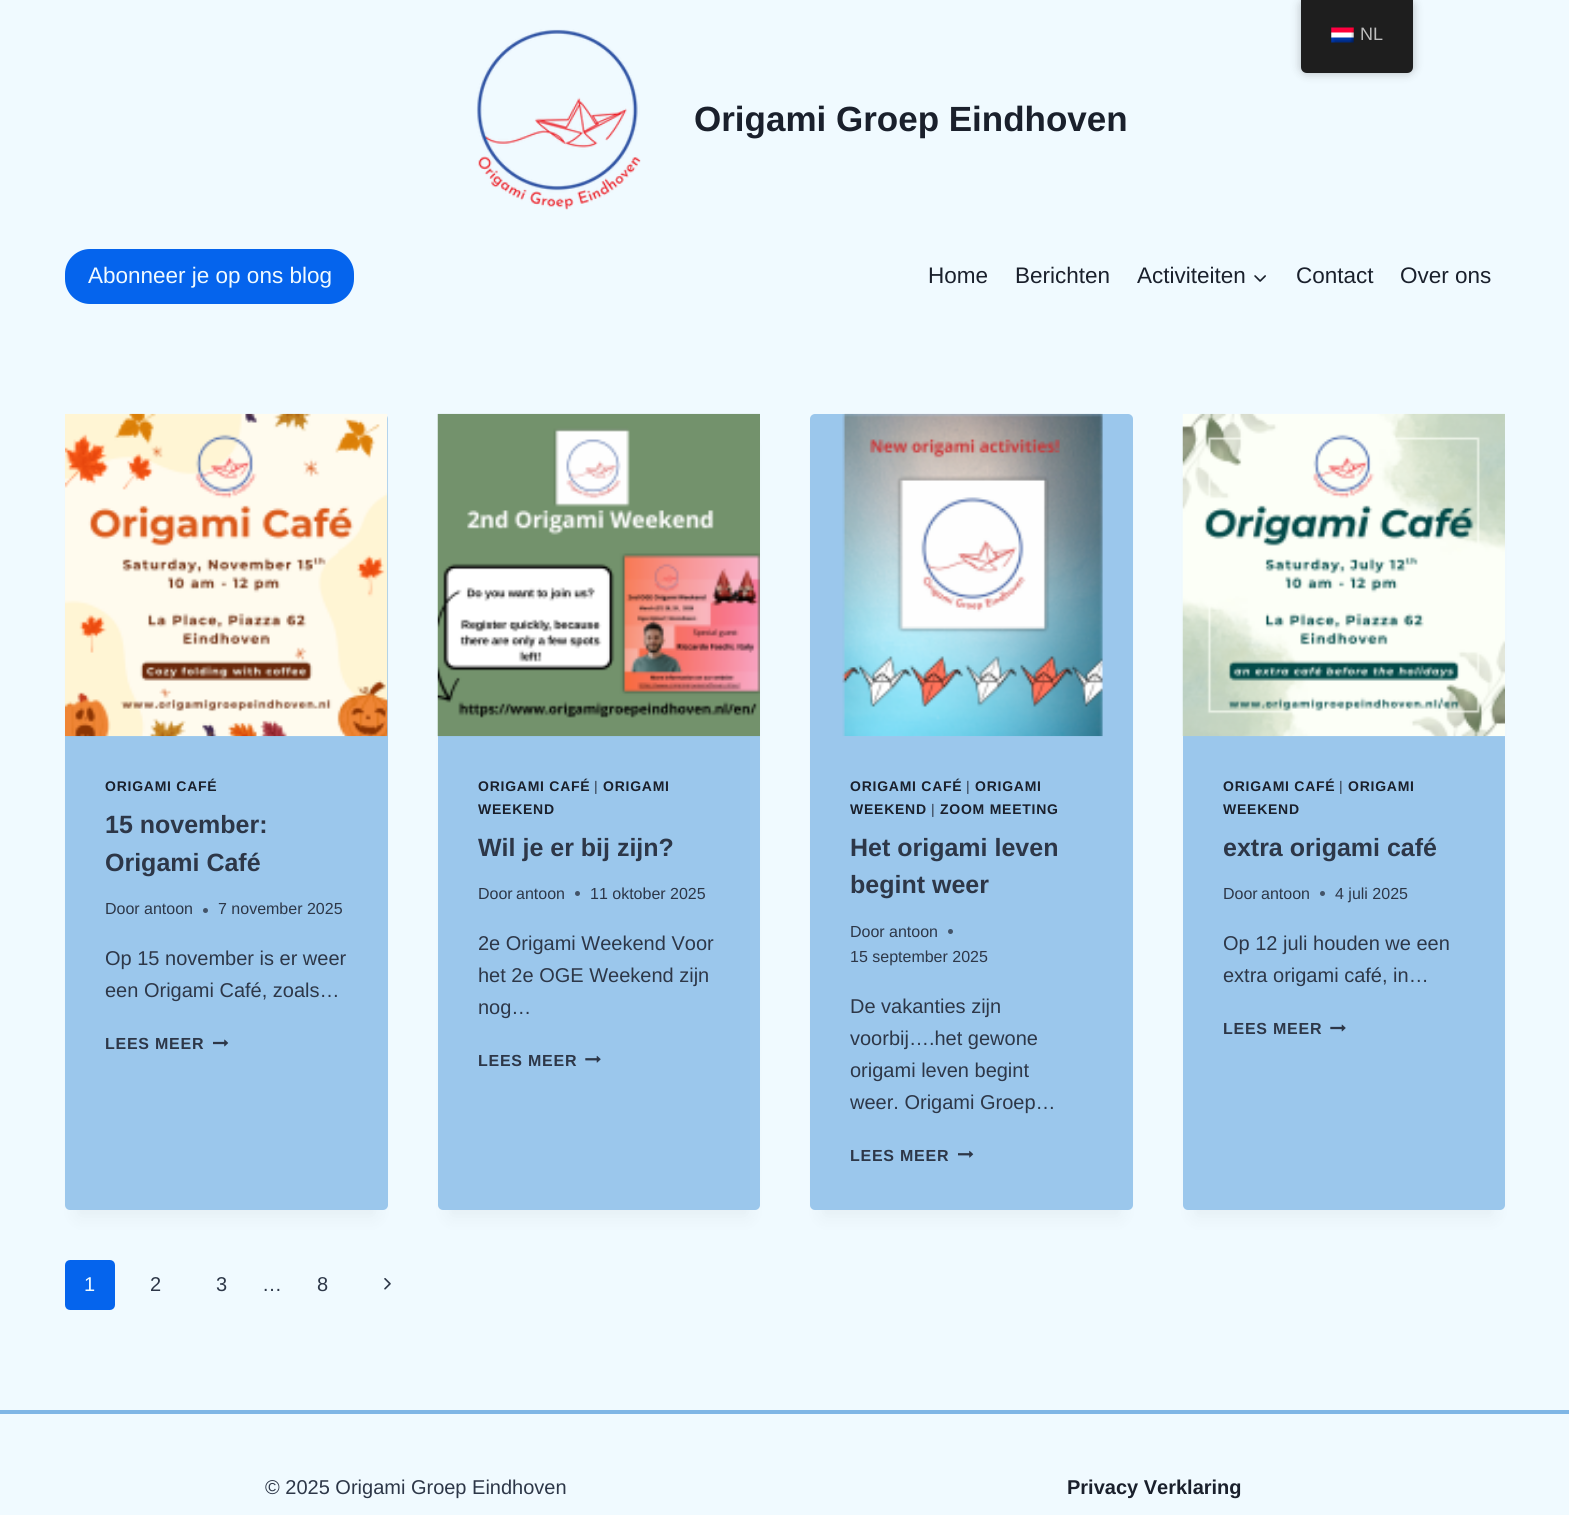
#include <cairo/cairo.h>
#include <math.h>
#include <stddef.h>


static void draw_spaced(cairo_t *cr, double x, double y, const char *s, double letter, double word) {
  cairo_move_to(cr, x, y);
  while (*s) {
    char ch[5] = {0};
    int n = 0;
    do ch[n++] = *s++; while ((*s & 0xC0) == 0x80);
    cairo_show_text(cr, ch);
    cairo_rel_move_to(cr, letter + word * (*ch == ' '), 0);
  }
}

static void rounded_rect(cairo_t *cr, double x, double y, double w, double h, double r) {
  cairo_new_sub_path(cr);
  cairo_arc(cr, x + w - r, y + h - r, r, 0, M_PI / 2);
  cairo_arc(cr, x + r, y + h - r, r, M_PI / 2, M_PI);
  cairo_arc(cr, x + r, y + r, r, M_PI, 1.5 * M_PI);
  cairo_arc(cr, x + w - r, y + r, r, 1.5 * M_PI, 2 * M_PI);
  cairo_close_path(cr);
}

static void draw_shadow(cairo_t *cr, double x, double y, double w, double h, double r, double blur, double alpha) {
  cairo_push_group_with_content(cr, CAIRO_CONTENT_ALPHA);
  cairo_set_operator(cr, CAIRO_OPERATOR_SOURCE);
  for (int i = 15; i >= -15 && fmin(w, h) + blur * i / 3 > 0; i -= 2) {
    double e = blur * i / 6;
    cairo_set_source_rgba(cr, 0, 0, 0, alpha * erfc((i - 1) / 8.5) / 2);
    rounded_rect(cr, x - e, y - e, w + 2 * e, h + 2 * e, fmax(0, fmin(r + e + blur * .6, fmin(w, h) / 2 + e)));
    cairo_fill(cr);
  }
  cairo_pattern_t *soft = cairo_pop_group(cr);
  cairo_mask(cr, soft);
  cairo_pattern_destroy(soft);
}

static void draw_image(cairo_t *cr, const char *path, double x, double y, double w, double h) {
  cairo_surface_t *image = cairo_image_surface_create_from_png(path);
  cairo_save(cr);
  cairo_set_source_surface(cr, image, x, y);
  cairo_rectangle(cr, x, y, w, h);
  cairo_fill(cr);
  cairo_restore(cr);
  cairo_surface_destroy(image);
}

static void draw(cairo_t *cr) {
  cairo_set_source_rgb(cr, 240 / 255.0, 250 / 255.0, 1);
  cairo_paint(cr);
  cairo_set_source_rgb(cr, 0, 0, 0);
  draw_shadow(cr, 1301, 0, 112, 73, 6, 5, 0.25);
  cairo_set_source_rgb(cr, 30 / 255.0, 30 / 255.0, 30 / 255.0);
  cairo_new_path(cr);
  cairo_move_to(cr, 1301, 0);
  cairo_line_to(cr, 1413, 0);
  cairo_line_to(cr, 1413, 67);
  cairo_curve_to(cr, 1413, 70.5, 1410.5, 73, 1407, 73);
  cairo_line_to(cr, 1307, 73);
  cairo_curve_to(cr, 1303.5, 73, 1301, 70.5, 1301, 67);
  cairo_close_path(cr);
  cairo_fill(cr);
  draw_image(cr, "images/1.png", 1331, 27, 23, 16);
  draw_image(cr, "images/2.png", 476, 29, 165, 181);
  cairo_set_source_rgb(cr, 5 / 255.0, 100 / 255.0, 237 / 255.0);
  rounded_rect(cr, 65, 249, 289, 55, 25);
  cairo_fill(cr);
  draw_image(cr, "images/3.png", 1254, 275, 12, 7);
  cairo_set_source_rgb(cr, 0, 0, 0);
  draw_shadow(cr, 78, 445, 297, 771, 0, 9.5, 0.05);
  cairo_set_source_rgb(cr, 155 / 255.0, 199 / 255.0, 236 / 255.0);
  rounded_rect(cr, 65, 414, 323, 796, 5);
  cairo_fill(cr);
  draw_image(cr, "images/4.png", 65, 413, 323, 324);
  cairo_set_source_rgb(cr, 67 / 255.0, 84 / 255.0, 105 / 255.0);
  cairo_arc(cr, 205.5, 910.5, 2.5, 0, 2 * M_PI);
  cairo_fill(cr);
  draw_image(cr, "images/5.png", 213, 1039, 16, 8);
  cairo_set_source_rgb(cr, 0, 0, 0);
  draw_shadow(cr, 450, 445, 298, 771, 0, 9.5, 0.05);
  cairo_set_source_rgb(cr, 155 / 255.0, 199 / 255.0, 236 / 255.0);
  rounded_rect(cr, 438, 414, 322, 796, 5);
  cairo_fill(cr);
  draw_image(cr, "images/6.png", 437, 413, 323, 324);
  cairo_set_source_rgb(cr, 67 / 255.0, 84 / 255.0, 105 / 255.0);
  cairo_arc(cr, 577.5, 893.5, 2.5, 0, 2 * M_PI);
  cairo_fill(cr);
  draw_image(cr, "images/7.png", 585, 1055, 16, 8);
  cairo_set_source_rgb(cr, 0, 0, 0);
  draw_shadow(cr, 823, 445, 297, 771, 0, 9.5, 0.05);
  cairo_set_source_rgb(cr, 155 / 255.0, 199 / 255.0, 236 / 255.0);
  rounded_rect(cr, 810, 414, 323, 796, 5);
  cairo_fill(cr);
  draw_image(cr, "images/8.png", 842, 413, 261, 324);
  cairo_set_source_rgb(cr, 67 / 255.0, 84 / 255.0, 105 / 255.0);
  cairo_arc(cr, 950.5, 931.5, 2.5, 0, 2 * M_PI);
  cairo_fill(cr);
  draw_image(cr, "images/9.png", 958, 1150, 16, 8);
  cairo_set_source_rgb(cr, 0, 0, 0);
  draw_shadow(cr, 1195, 445, 298, 771, 0, 9.5, 0.05);
  cairo_set_source_rgb(cr, 155 / 255.0, 199 / 255.0, 236 / 255.0);
  rounded_rect(cr, 1183, 414, 322, 796, 5);
  cairo_fill(cr);
  draw_image(cr, "images/10.png", 1182, 413, 323, 324);
  cairo_set_source_rgb(cr, 67 / 255.0, 84 / 255.0, 105 / 255.0);
  cairo_arc(cr, 1322.5, 893.5, 2.5, 0, 2 * M_PI);
  cairo_fill(cr);
  draw_image(cr, "images/11.png", 1330, 1024, 16, 8);
  cairo_set_source_rgb(cr, 5 / 255.0, 100 / 255.0, 237 / 255.0);
  rounded_rect(cr, 66.5, 1261.5, 47, 47, 3.5);
  cairo_fill_preserve(cr);
  cairo_set_line_width(cr, 3);
  cairo_stroke(cr);
  draw_image(cr, "images/12.png", 384, 1278, 7, 12);
  cairo_set_source_rgb(cr, 127 / 255.0, 182 / 255.0, 229 / 255.0);
  cairo_rectangle(cr, 0, 1410, 1569, 4);
  cairo_fill(cr);
  cairo_select_font_face(cr, "Liberation Sans", CAIRO_FONT_SLANT_NORMAL, CAIRO_FONT_WEIGHT_NORMAL);
  cairo_set_font_size(cr, 18);
  cairo_set_source_rgb(cr, 189 / 255.0, 189 / 255.0, 189 / 255.0);
  cairo_move_to(cr, 1360, 40);
  cairo_show_text(cr, "NL");
  cairo_select_font_face(cr, "Liberation Sans", CAIRO_FONT_SLANT_NORMAL, CAIRO_FONT_WEIGHT_BOLD);
  cairo_set_font_size(cr, 35);
  cairo_set_source_rgb(cr, 26 / 255.0, 32 / 255.0, 44 / 255.0);
  cairo_move_to(cr, 694, 131);
  cairo_show_text(cr, "Origami Groep Eindhoven");
  cairo_select_font_face(cr, "Liberation Sans", CAIRO_FONT_SLANT_NORMAL, CAIRO_FONT_WEIGHT_NORMAL);
  cairo_set_font_size(cr, 22.5);
  cairo_set_source_rgb(cr, 240 / 255.0, 250 / 255.0, 1);
  cairo_move_to(cr, 88, 283);
  cairo_show_text(cr, "Abonneer je op ons blog");
  cairo_set_source_rgb(cr, 26 / 255.0, 32 / 255.0, 44 / 255.0);
  cairo_move_to(cr, 928, 283);
  cairo_show_text(cr, "Home");
  cairo_move_to(cr, 1015, 283);
  cairo_show_text(cr, "Berichten");
  cairo_move_to(cr, 1137, 283);
  cairo_show_text(cr, "Activiteiten");
  cairo_move_to(cr, 1296, 283);
  cairo_show_text(cr, "Contact");
  cairo_move_to(cr, 1400, 283);
  cairo_show_text(cr, "Over ons");
  cairo_select_font_face(cr, "Liberation Sans", CAIRO_FONT_SLANT_NORMAL, CAIRO_FONT_WEIGHT_BOLD);
  cairo_set_font_size(cr, 14);
  draw_spaced(cr, 105, 791, "ORIGAMI CAFÉ", 0.75, 0);
  cairo_set_font_size(cr, 25);
  cairo_set_source_rgb(cr, 45 / 255.0, 55 / 255.0, 72 / 255.0);
  cairo_move_to(cr, 105, 833);
  cairo_show_text(cr, "15 november:");
  cairo_move_to(cr, 105, 871);
  cairo_show_text(cr, "Origami Café");
  cairo_select_font_face(cr, "Liberation Sans", CAIRO_FONT_SLANT_NORMAL, CAIRO_FONT_WEIGHT_NORMAL);
  cairo_set_font_size(cr, 16);
  cairo_move_to(cr, 105, 914);
  cairo_show_text(cr, "Door");
  cairo_move_to(cr, 144, 914);
  cairo_show_text(cr, "antoon");
  cairo_move_to(cr, 218, 914);
  cairo_show_text(cr, "7 november 2025");
  cairo_set_font_size(cr, 20);
  cairo_move_to(cr, 105, 965);
  cairo_show_text(cr, "Op 15 november is er weer");
  cairo_move_to(cr, 105, 997);
  cairo_show_text(cr, "een Origami Café, zoals…");
  cairo_select_font_face(cr, "Liberation Sans", CAIRO_FONT_SLANT_NORMAL, CAIRO_FONT_WEIGHT_BOLD);
  cairo_set_font_size(cr, 16);
  draw_spaced(cr, 105, 1049, "LEES MEER", 0.75, 0);
  cairo_set_font_size(cr, 14);
  cairo_set_source_rgb(cr, 26 / 255.0, 32 / 255.0, 44 / 255.0);
  draw_spaced(cr, 478, 791, "ORIGAMI CAFÉ", 0.75, 0);
  cairo_select_font_face(cr, "Liberation Sans", CAIRO_FONT_SLANT_NORMAL, CAIRO_FONT_WEIGHT_NORMAL);
  cairo_set_source_rgb(cr, 45 / 255.0, 55 / 255.0, 72 / 255.0);
  draw_spaced(cr, 594, 791, "|", 0.75, 0);
  cairo_select_font_face(cr, "Liberation Sans", CAIRO_FONT_SLANT_NORMAL, CAIRO_FONT_WEIGHT_BOLD);
  cairo_set_source_rgb(cr, 26 / 255.0, 32 / 255.0, 44 / 255.0);
  draw_spaced(cr, 603, 791, "ORIGAMI", 0.75, 0);
  draw_spaced(cr, 478, 814, "WEEKEND", 0.75, 0);
  cairo_set_font_size(cr, 25);
  cairo_set_source_rgb(cr, 45 / 255.0, 55 / 255.0, 72 / 255.0);
  cairo_move_to(cr, 478, 856);
  cairo_show_text(cr, "Wil je er bij zijn?");
  cairo_select_font_face(cr, "Liberation Sans", CAIRO_FONT_SLANT_NORMAL, CAIRO_FONT_WEIGHT_NORMAL);
  cairo_set_font_size(cr, 16);
  cairo_move_to(cr, 478, 899);
  cairo_show_text(cr, "Door");
  cairo_move_to(cr, 516, 899);
  cairo_show_text(cr, "antoon");
  cairo_move_to(cr, 590, 899);
  cairo_show_text(cr, "11 oktober 2025");
  cairo_set_font_size(cr, 20);
  cairo_move_to(cr, 478, 950);
  cairo_show_text(cr, "2e Origami Weekend Voor");
  cairo_move_to(cr, 478, 982);
  cairo_show_text(cr, "het 2e OGE Weekend zijn");
  cairo_move_to(cr, 478, 1014);
  cairo_show_text(cr, "nog…");
  cairo_select_font_face(cr, "Liberation Sans", CAIRO_FONT_SLANT_NORMAL, CAIRO_FONT_WEIGHT_BOLD);
  cairo_set_font_size(cr, 16);
  draw_spaced(cr, 478, 1066, "LEES MEER", 0.75, 0);
  cairo_set_font_size(cr, 14);
  cairo_set_source_rgb(cr, 26 / 255.0, 32 / 255.0, 44 / 255.0);
  draw_spaced(cr, 850, 791, "ORIGAMI CAFÉ", 0.75, 0);
  cairo_select_font_face(cr, "Liberation Sans", CAIRO_FONT_SLANT_NORMAL, CAIRO_FONT_WEIGHT_NORMAL);
  cairo_set_source_rgb(cr, 45 / 255.0, 55 / 255.0, 72 / 255.0);
  draw_spaced(cr, 966, 791, "|", 0.75, 0);
  cairo_select_font_face(cr, "Liberation Sans", CAIRO_FONT_SLANT_NORMAL, CAIRO_FONT_WEIGHT_BOLD);
  cairo_set_source_rgb(cr, 26 / 255.0, 32 / 255.0, 44 / 255.0);
  draw_spaced(cr, 975, 791, "ORIGAMI", 0.75, 0);
  draw_spaced(cr, 850, 814, "WEEKEND", 0.75, 0);
  cairo_select_font_face(cr, "Liberation Sans", CAIRO_FONT_SLANT_NORMAL, CAIRO_FONT_WEIGHT_NORMAL);
  cairo_set_source_rgb(cr, 45 / 255.0, 55 / 255.0, 72 / 255.0);
  draw_spaced(cr, 931, 814, "|", 0.75, 0);
  cairo_select_font_face(cr, "Liberation Sans", CAIRO_FONT_SLANT_NORMAL, CAIRO_FONT_WEIGHT_BOLD);
  cairo_set_source_rgb(cr, 26 / 255.0, 32 / 255.0, 44 / 255.0);
  draw_spaced(cr, 940, 814, "ZOOM MEETING", 0.75, 0);
  cairo_set_font_size(cr, 25);
  cairo_set_source_rgb(cr, 45 / 255.0, 55 / 255.0, 72 / 255.0);
  cairo_move_to(cr, 850, 856);
  cairo_show_text(cr, "Het origami leven");
  cairo_move_to(cr, 850, 893);
  cairo_show_text(cr, "begint weer");
  cairo_select_font_face(cr, "Liberation Sans", CAIRO_FONT_SLANT_NORMAL, CAIRO_FONT_WEIGHT_NORMAL);
  cairo_set_font_size(cr, 16);
  cairo_move_to(cr, 850, 937);
  cairo_show_text(cr, "Door");
  cairo_move_to(cr, 889, 937);
  cairo_show_text(cr, "antoon");
  cairo_move_to(cr, 850, 962);
  cairo_show_text(cr, "15 september 2025");
  cairo_set_font_size(cr, 20);
  cairo_move_to(cr, 850, 1013);
  cairo_show_text(cr, "De vakanties zijn");
  cairo_move_to(cr, 850, 1045);
  cairo_show_text(cr, "voorbij….het gewone");
  cairo_move_to(cr, 850, 1077);
  cairo_show_text(cr, "origami leven begint");
  cairo_move_to(cr, 850, 1109);
  cairo_show_text(cr, "weer. Origami Groep…");
  cairo_select_font_face(cr, "Liberation Sans", CAIRO_FONT_SLANT_NORMAL, CAIRO_FONT_WEIGHT_BOLD);
  cairo_set_font_size(cr, 16);
  draw_spaced(cr, 850, 1161, "LEES MEER", 0.75, 0);
  cairo_set_font_size(cr, 14);
  cairo_set_source_rgb(cr, 26 / 255.0, 32 / 255.0, 44 / 255.0);
  draw_spaced(cr, 1223, 791, "ORIGAMI CAFÉ", 0.75, 0);
  cairo_select_font_face(cr, "Liberation Sans", CAIRO_FONT_SLANT_NORMAL, CAIRO_FONT_WEIGHT_NORMAL);
  cairo_set_source_rgb(cr, 45 / 255.0, 55 / 255.0, 72 / 255.0);
  draw_spaced(cr, 1339, 791, "|", 0.75, 0);
  cairo_select_font_face(cr, "Liberation Sans", CAIRO_FONT_SLANT_NORMAL, CAIRO_FONT_WEIGHT_BOLD);
  cairo_set_source_rgb(cr, 26 / 255.0, 32 / 255.0, 44 / 255.0);
  draw_spaced(cr, 1348, 791, "ORIGAMI", 0.75, 0);
  draw_spaced(cr, 1223, 814, "WEEKEND", 0.75, 0);
  cairo_set_font_size(cr, 25);
  cairo_set_source_rgb(cr, 45 / 255.0, 55 / 255.0, 72 / 255.0);
  cairo_move_to(cr, 1223, 856);
  cairo_show_text(cr, "extra origami café");
  cairo_select_font_face(cr, "Liberation Sans", CAIRO_FONT_SLANT_NORMAL, CAIRO_FONT_WEIGHT_NORMAL);
  cairo_set_font_size(cr, 16);
  cairo_move_to(cr, 1223, 899);
  cairo_show_text(cr, "Door");
  cairo_move_to(cr, 1261, 899);
  cairo_show_text(cr, "antoon");
  cairo_move_to(cr, 1335, 899);
  cairo_show_text(cr, "4 juli 2025");
  cairo_set_font_size(cr, 20);
  cairo_move_to(cr, 1223, 950);
  cairo_show_text(cr, "Op 12 juli houden we een");
  cairo_move_to(cr, 1223, 982);
  cairo_show_text(cr, "extra origami café, in…");
  cairo_select_font_face(cr, "Liberation Sans", CAIRO_FONT_SLANT_NORMAL, CAIRO_FONT_WEIGHT_BOLD);
  cairo_set_font_size(cr, 16);
  draw_spaced(cr, 1223, 1034, "LEES MEER", 0.75, 0);
  cairo_select_font_face(cr, "Liberation Sans", CAIRO_FONT_SLANT_NORMAL, CAIRO_FONT_WEIGHT_NORMAL);
  cairo_set_font_size(cr, 20);
  cairo_set_source_rgb(cr, 240 / 255.0, 250 / 255.0, 1);
  cairo_move_to(cr, 84, 1291);
  cairo_show_text(cr, "1");
  cairo_set_source_rgb(cr, 45 / 255.0, 55 / 255.0, 72 / 255.0);
  cairo_move_to(cr, 150, 1291);
  cairo_show_text(cr, "2");
  cairo_move_to(cr, 216, 1291);
  cairo_show_text(cr, "3");
  cairo_move_to(cr, 262, 1291);
  cairo_show_text(cr, "…");
  cairo_move_to(cr, 317, 1291);
  cairo_show_text(cr, "8");
  cairo_move_to(cr, 265, 1494);
  cairo_show_text(cr, "© 2025 Origami Groep Eindhoven");
  cairo_select_font_face(cr, "Liberation Sans", CAIRO_FONT_SLANT_NORMAL, CAIRO_FONT_WEIGHT_BOLD);
  cairo_set_source_rgb(cr, 26 / 255.0, 32 / 255.0, 44 / 255.0);
  cairo_move_to(cr, 1067, 1494);
  cairo_show_text(cr, "Privacy Verklaring");
}

int main(void) {
  cairo_surface_t *surface = cairo_image_surface_create(CAIRO_FORMAT_RGB24, 1569, 1515);
  cairo_t *cr = cairo_create(surface);
  cairo_font_options_t *options = cairo_font_options_create();
  cairo_font_options_set_hint_metrics(options, CAIRO_HINT_METRICS_OFF);
  cairo_font_options_set_hint_style(options, CAIRO_HINT_STYLE_NONE);
  cairo_set_font_options(cr, options);
  cairo_set_miter_limit(cr, 4);
  draw(cr);
  cairo_surface_write_to_png(surface, "out.png");
  cairo_font_options_destroy(options);
  cairo_destroy(cr);
  cairo_surface_destroy(surface);
  return 0;
}
